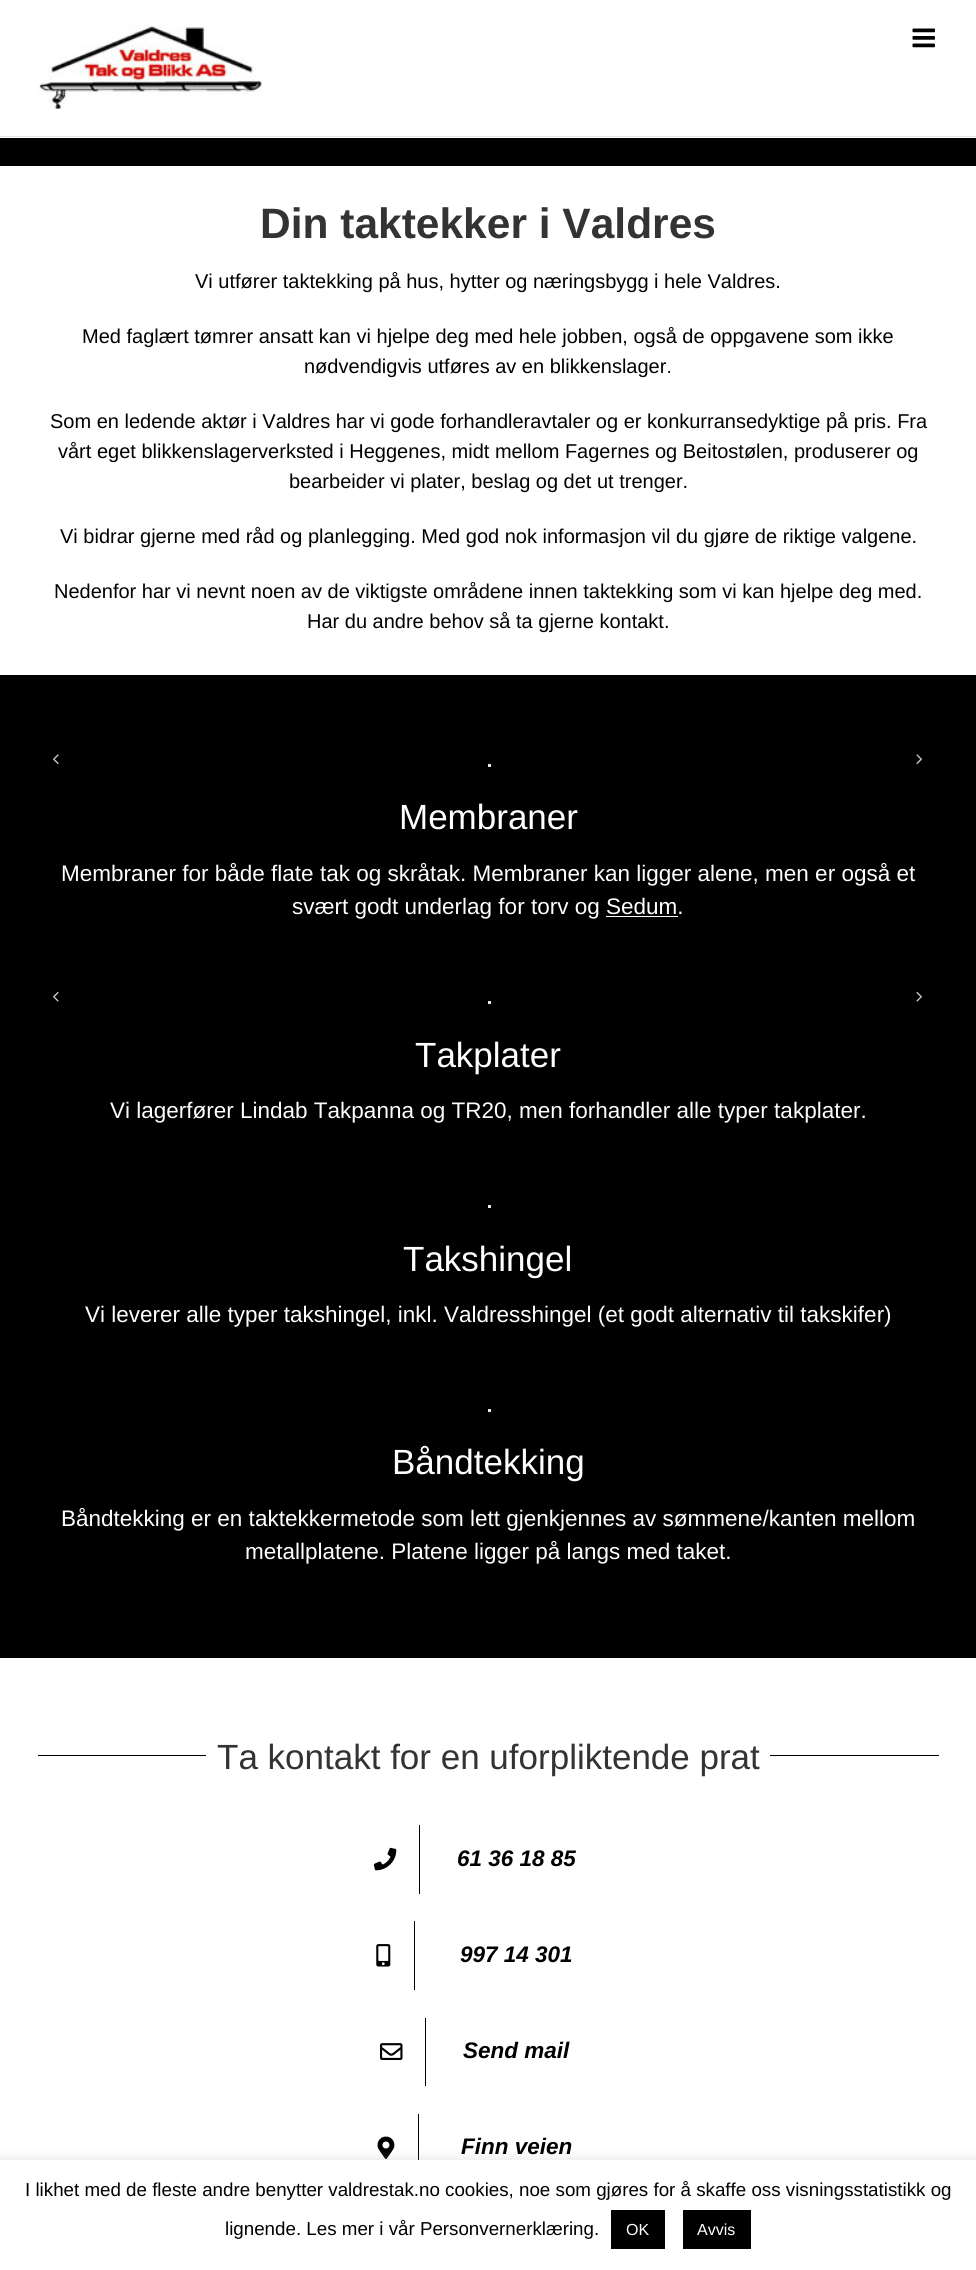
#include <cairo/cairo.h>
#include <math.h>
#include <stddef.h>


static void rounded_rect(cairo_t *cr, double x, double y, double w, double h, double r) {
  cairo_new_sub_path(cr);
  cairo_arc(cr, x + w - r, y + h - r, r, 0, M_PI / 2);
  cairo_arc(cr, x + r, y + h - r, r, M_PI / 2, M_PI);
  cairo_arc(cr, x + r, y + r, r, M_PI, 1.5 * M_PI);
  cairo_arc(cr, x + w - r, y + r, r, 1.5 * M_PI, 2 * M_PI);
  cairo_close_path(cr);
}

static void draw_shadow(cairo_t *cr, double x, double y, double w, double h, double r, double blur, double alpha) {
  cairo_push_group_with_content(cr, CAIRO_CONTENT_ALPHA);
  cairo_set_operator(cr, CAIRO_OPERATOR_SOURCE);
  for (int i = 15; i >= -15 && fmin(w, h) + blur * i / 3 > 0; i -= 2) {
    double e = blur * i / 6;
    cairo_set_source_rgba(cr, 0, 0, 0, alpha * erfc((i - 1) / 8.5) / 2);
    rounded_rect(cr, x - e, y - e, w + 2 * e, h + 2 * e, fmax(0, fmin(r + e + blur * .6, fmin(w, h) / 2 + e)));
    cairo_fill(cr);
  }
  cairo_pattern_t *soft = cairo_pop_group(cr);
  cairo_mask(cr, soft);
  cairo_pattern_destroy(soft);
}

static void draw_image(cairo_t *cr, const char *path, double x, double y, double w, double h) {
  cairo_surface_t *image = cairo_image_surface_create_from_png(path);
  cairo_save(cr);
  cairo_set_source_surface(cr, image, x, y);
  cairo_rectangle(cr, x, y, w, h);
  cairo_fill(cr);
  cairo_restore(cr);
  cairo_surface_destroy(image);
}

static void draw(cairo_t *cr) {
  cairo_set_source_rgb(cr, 1, 1, 1);
  cairo_paint(cr);
  cairo_set_source_rgb(cr, 229 / 255.0, 229 / 255.0, 229 / 255.0);
  cairo_rectangle(cr, 0, 136, 976, 1);
  cairo_fill(cr);
  draw_image(cr, "images/1.png", 38, 26, 224, 83);
  draw_image(cr, "images/2.png", 912, 28, 23, 20);
  cairo_set_source_rgb(cr, 0, 0, 0);
  cairo_rectangle(cr, 0, 138, 976, 28);
  cairo_fill(cr);
  cairo_rectangle(cr, 0, 675, 976, 983);
  cairo_fill(cr);
  draw_image(cr, "images/3.png", 53, 754, 6, 10);
  draw_image(cr, "images/4.png", 916, 754, 6, 10);
  cairo_set_source_rgb(cr, 233 / 255.0, 234 / 255.0, 238 / 255.0);
  cairo_rectangle(cr, 488, 764, 3, 3);
  cairo_fill(cr);
  cairo_set_source_rgb(cr, 1, 1, 1);
  cairo_rectangle(cr, 606, 916, 72, 1);
  cairo_fill(cr);
  draw_image(cr, "images/5.png", 53, 991, 6, 11);
  draw_image(cr, "images/6.png", 916, 991, 6, 11);
  cairo_set_source_rgb(cr, 233 / 255.0, 234 / 255.0, 238 / 255.0);
  cairo_rectangle(cr, 488, 1001, 3, 3);
  cairo_fill(cr);
  cairo_rectangle(cr, 488, 1205, 3, 3);
  cairo_fill(cr);
  cairo_rectangle(cr, 488, 1409, 3, 3);
  cairo_fill(cr);
  cairo_set_source_rgb(cr, 0, 0, 0);
  cairo_rectangle(cr, 38, 1755, 168, 1);
  cairo_fill(cr);
  cairo_rectangle(cr, 770, 1755, 169, 1);
  cairo_fill(cr);
  cairo_rectangle(cr, 419, 1825, 1, 69);
  cairo_fill(cr);
  draw_image(cr, "images/7.png", 373, 1847, 24, 24);
  cairo_rectangle(cr, 414, 1921, 1, 69);
  cairo_fill(cr);
  draw_image(cr, "images/8.png", 376, 1944, 15, 23);
  cairo_rectangle(cr, 425, 2018, 1, 68);
  cairo_fill(cr);
  draw_image(cr, "images/9.png", 380, 2043, 23, 17);
  cairo_rectangle(cr, 418, 2114, 1, 46);
  cairo_fill(cr);
  draw_image(cr, "images/10.png", 377, 2136, 18, 23);
  cairo_set_source_rgb(cr, 172 / 255.0, 171 / 255.0, 171 / 255.0);
  draw_shadow(cr, 0, 2159, 976, 110, 0, 6, 0.3);
  cairo_set_source_rgb(cr, 1, 1, 1);
  cairo_rectangle(cr, 0, 2160, 976, 110);
  cairo_fill(cr);
  cairo_set_source_rgb(cr, 0, 0, 0);
  cairo_rectangle(cr, 611, 2210, 54, 39);
  cairo_fill(cr);
  cairo_rectangle(cr, 683, 2210, 68, 39);
  cairo_fill(cr);
  cairo_select_font_face(cr, "Liberation Sans", CAIRO_FONT_SLANT_NORMAL, CAIRO_FONT_WEIGHT_BOLD);
  cairo_set_font_size(cr, 42.5);
  cairo_set_source_rgb(cr, 51 / 255.0, 51 / 255.0, 51 / 255.0);
  cairo_move_to(cr, 260, 238);
  cairo_show_text(cr, "Din taktekker i Valdres");
  cairo_select_font_face(cr, "Liberation Sans", CAIRO_FONT_SLANT_NORMAL, CAIRO_FONT_WEIGHT_NORMAL);
  cairo_set_font_size(cr, 20);
  cairo_set_source_rgb(cr, 0, 0, 0);
  cairo_move_to(cr, 195, 288);
  cairo_show_text(cr, "Vi utfører taktekking på hus, hytter og næringsbygg i hele Valdres.");
  cairo_move_to(cr, 82, 343);
  cairo_show_text(cr, "Med faglært tømrer ansatt kan vi hjelpe deg med hele jobben, også de oppgavene som ikke");
  cairo_move_to(cr, 304, 373);
  cairo_show_text(cr, "nødvendigvis utføres av en blikkenslager.");
  cairo_move_to(cr, 50, 428);
  cairo_show_text(cr, "Som en ledende aktør i Valdres har vi gode forhandleravtaler og er konkurransedyktige på pris. Fra");
  cairo_move_to(cr, 58, 458);
  cairo_show_text(cr, "vårt eget blikkenslagerverksted i Heggenes, midt mellom Fagernes og Beitostølen, produserer og");
  cairo_move_to(cr, 289, 488);
  cairo_show_text(cr, "bearbeider vi plater, beslag og det ut trenger.");
  cairo_move_to(cr, 60, 543);
  cairo_show_text(cr, "Vi bidrar gjerne med råd og planlegging. Med god nok informasjon vil du gjøre de riktige valgene.");
  cairo_move_to(cr, 54, 598);
  cairo_show_text(cr, "Nedenfor har vi nevnt noen av de viktigste områdene innen taktekking som vi kan hjelpe deg med.");
  cairo_move_to(cr, 307, 628);
  cairo_show_text(cr, "Har du andre behov så ta gjerne kontakt.");
  cairo_set_font_size(cr, 35);
  cairo_set_source_rgb(cr, 1, 1, 1);
  cairo_move_to(cr, 399, 829);
  cairo_show_text(cr, "Membraner");
  cairo_set_font_size(cr, 22.5);
  cairo_move_to(cr, 61, 881);
  cairo_show_text(cr, "Membraner for både flate tak og skråtak. Membraner kan ligger alene, men er også et");
  cairo_move_to(cr, 292, 914);
  cairo_show_text(cr, "svært godt underlag for torv og Sedum.");
  cairo_set_font_size(cr, 35);
  cairo_move_to(cr, 415, 1067);
  cairo_show_text(cr, "Takplater");
  cairo_set_font_size(cr, 22.5);
  cairo_move_to(cr, 110, 1118);
  cairo_show_text(cr, "Vi lagerfører Lindab Takpanna og TR20, men forhandler alle typer takplater.");
  cairo_set_font_size(cr, 35);
  cairo_move_to(cr, 403, 1271);
  cairo_show_text(cr, "Takshingel");
  cairo_set_font_size(cr, 22.5);
  cairo_move_to(cr, 85, 1322);
  cairo_show_text(cr, "Vi leverer alle typer takshingel, inkl. Valdresshingel (et godt alternativ til takskifer)");
  cairo_set_font_size(cr, 35);
  cairo_move_to(cr, 392, 1474);
  cairo_show_text(cr, "Båndtekking");
  cairo_set_font_size(cr, 22.5);
  cairo_move_to(cr, 61, 1526);
  cairo_show_text(cr, "Båndtekking er en taktekkermetode som lett gjenkjennes av sømmene/kanten mellom");
  cairo_move_to(cr, 245, 1559);
  cairo_show_text(cr, "metallplatene. Platene ligger på langs med taket.");
  cairo_set_font_size(cr, 35);
  cairo_set_source_rgb(cr, 51 / 255.0, 51 / 255.0, 51 / 255.0);
  cairo_move_to(cr, 217, 1769);
  cairo_show_text(cr, "Ta kontakt for en uforpliktende prat");
  cairo_select_font_face(cr, "Liberation Sans", CAIRO_FONT_SLANT_ITALIC, CAIRO_FONT_WEIGHT_BOLD);
  cairo_set_font_size(cr, 22.5);
  cairo_set_source_rgb(cr, 0, 0, 0);
  cairo_move_to(cr, 457, 1866);
  cairo_show_text(cr, "61 36 18 85");
  cairo_move_to(cr, 460, 1962);
  cairo_show_text(cr, "997 14 301");
  cairo_move_to(cr, 463, 2058);
  cairo_show_text(cr, "Send mail");
  cairo_move_to(cr, 461, 2154);
  cairo_show_text(cr, "Finn veien");
  cairo_select_font_face(cr, "Liberation Sans", CAIRO_FONT_SLANT_NORMAL, CAIRO_FONT_WEIGHT_NORMAL);
  cairo_set_font_size(cr, 18.75);
  cairo_move_to(cr, 25, 2196);
  cairo_show_text(cr, "I likhet med de fleste andre benytter valdrestak.no cookies, noe som gjøres for å skaffe oss visningsstatistikk og");
  cairo_move_to(cr, 225, 2235);
  cairo_show_text(cr, "lignende. Les mer i vår Personvernerklæring.");
  cairo_set_font_size(cr, 16);
  cairo_set_source_rgb(cr, 1, 1, 1);
  cairo_move_to(cr, 626, 2235);
  cairo_show_text(cr, "OK");
  cairo_move_to(cr, 697, 2235);
  cairo_show_text(cr, "Avvis");
}

int main(void) {
  cairo_surface_t *surface = cairo_image_surface_create(CAIRO_FORMAT_RGB24, 976, 2270);
  cairo_t *cr = cairo_create(surface);
  cairo_font_options_t *options = cairo_font_options_create();
  cairo_font_options_set_hint_metrics(options, CAIRO_HINT_METRICS_OFF);
  cairo_font_options_set_hint_style(options, CAIRO_HINT_STYLE_NONE);
  cairo_set_font_options(cr, options);
  cairo_set_miter_limit(cr, 4);
  draw(cr);
  cairo_surface_write_to_png(surface, "out.png");
  cairo_font_options_destroy(options);
  cairo_destroy(cr);
  cairo_surface_destroy(surface);
  return 0;
}
